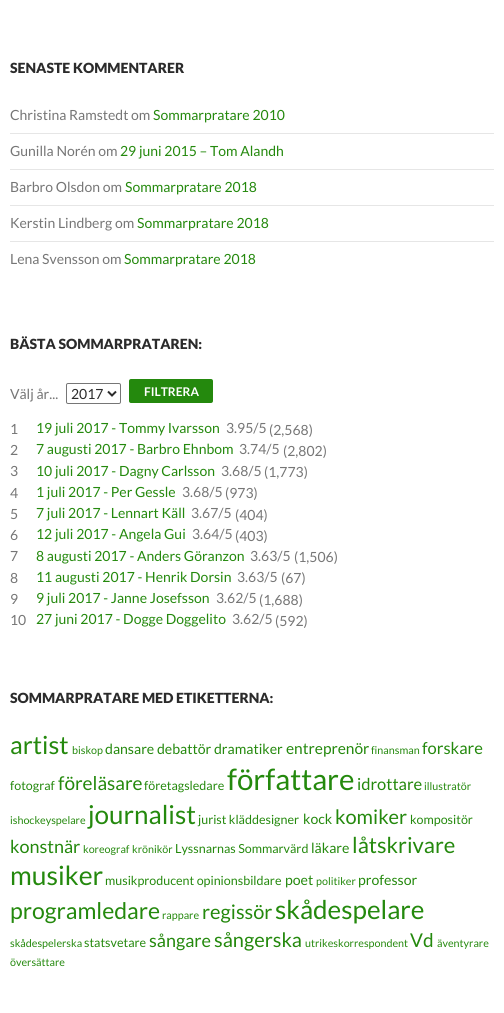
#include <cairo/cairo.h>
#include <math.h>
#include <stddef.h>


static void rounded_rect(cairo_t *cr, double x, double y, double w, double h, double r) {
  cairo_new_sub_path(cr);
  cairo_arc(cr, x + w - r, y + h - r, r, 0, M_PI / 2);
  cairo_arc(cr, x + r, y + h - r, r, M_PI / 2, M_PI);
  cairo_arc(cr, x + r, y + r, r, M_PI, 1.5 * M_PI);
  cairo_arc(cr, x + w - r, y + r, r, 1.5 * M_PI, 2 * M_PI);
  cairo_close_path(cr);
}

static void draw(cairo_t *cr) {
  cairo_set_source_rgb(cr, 1, 1, 1);
  cairo_paint(cr);
  cairo_set_source_rgb(cr, 230 / 255.0, 230 / 255.0, 230 / 255.0);
  cairo_rectangle(cr, 10, 133, 484, 1);
  cairo_fill(cr);
  cairo_rectangle(cr, 10, 169, 484, 1);
  cairo_fill(cr);
  cairo_rectangle(cr, 10, 205, 484, 1);
  cairo_fill(cr);
  cairo_rectangle(cr, 10, 241, 484, 1);
  cairo_fill(cr);
  rounded_rect(cr, 66.5, 383.5, 54, 20, 1.5);
  cairo_set_source_rgb(cr, 118 / 255.0, 118 / 255.0, 118 / 255.0);
  cairo_set_line_width(cr, 1);
  cairo_stroke(cr);
  cairo_new_path(cr);
  cairo_move_to(cr, 108, 391.5);
  cairo_line_to(cr, 112, 395.5);
  cairo_line_to(cr, 116, 391.5);
  cairo_set_source_rgb(cr, 43 / 255.0, 43 / 255.0, 43 / 255.0);
  cairo_set_line_width(cr, 2);
  cairo_stroke(cr);
  cairo_set_source_rgb(cr, 36 / 255.0, 137 / 255.0, 13 / 255.0);
  rounded_rect(cr, 129, 379, 84, 24, 2);
  cairo_fill(cr);
  cairo_select_font_face(cr, "Lato Black", CAIRO_FONT_SLANT_NORMAL, CAIRO_FONT_WEIGHT_NORMAL);
  cairo_set_font_size(cr, 14);
  cairo_set_source_rgb(cr, 43 / 255.0, 43 / 255.0, 43 / 255.0);
  cairo_move_to(cr, 10, 73);
  cairo_show_text(cr, "SENASTE KOMMENTARER");
  cairo_select_font_face(cr, "Lato", CAIRO_FONT_SLANT_NORMAL, CAIRO_FONT_WEIGHT_NORMAL);
  cairo_set_source_rgb(cr, 118 / 255.0, 118 / 255.0, 118 / 255.0);
  cairo_move_to(cr, 10, 120);
  cairo_show_text(cr, "Christina Ramstedt om");
  cairo_set_source_rgb(cr, 36 / 255.0, 137 / 255.0, 13 / 255.0);
  cairo_move_to(cr, 153, 120);
  cairo_show_text(cr, "Sommarpratare 2010");
  cairo_set_source_rgb(cr, 118 / 255.0, 118 / 255.0, 118 / 255.0);
  cairo_move_to(cr, 10, 156);
  cairo_show_text(cr, "Gunilla Norén om");
  cairo_set_source_rgb(cr, 36 / 255.0, 137 / 255.0, 13 / 255.0);
  cairo_move_to(cr, 120, 156);
  cairo_show_text(cr, "29 juni 2015 – Tom Alandh");
  cairo_set_source_rgb(cr, 118 / 255.0, 118 / 255.0, 118 / 255.0);
  cairo_move_to(cr, 10, 192);
  cairo_show_text(cr, "Barbro Olsdon om");
  cairo_set_source_rgb(cr, 36 / 255.0, 137 / 255.0, 13 / 255.0);
  cairo_move_to(cr, 125, 192);
  cairo_show_text(cr, "Sommarpratare 2018");
  cairo_set_source_rgb(cr, 118 / 255.0, 118 / 255.0, 118 / 255.0);
  cairo_move_to(cr, 10, 228);
  cairo_show_text(cr, "Kerstin Lindberg om");
  cairo_set_source_rgb(cr, 36 / 255.0, 137 / 255.0, 13 / 255.0);
  cairo_move_to(cr, 137, 228);
  cairo_show_text(cr, "Sommarpratare 2018");
  cairo_set_source_rgb(cr, 118 / 255.0, 118 / 255.0, 118 / 255.0);
  cairo_move_to(cr, 10, 264);
  cairo_show_text(cr, "Lena Svensson om");
  cairo_set_source_rgb(cr, 36 / 255.0, 137 / 255.0, 13 / 255.0);
  cairo_move_to(cr, 124, 264);
  cairo_show_text(cr, "Sommarpratare 2018");
  cairo_select_font_face(cr, "Lato Black", CAIRO_FONT_SLANT_NORMAL, CAIRO_FONT_WEIGHT_NORMAL);
  cairo_set_source_rgb(cr, 43 / 255.0, 43 / 255.0, 43 / 255.0);
  cairo_move_to(cr, 10, 349);
  cairo_show_text(cr, "BÄSTA SOMMARPRATAREN:");
  cairo_select_font_face(cr, "Lato", CAIRO_FONT_SLANT_NORMAL, CAIRO_FONT_WEIGHT_NORMAL);
  cairo_set_source_rgb(cr, 118 / 255.0, 118 / 255.0, 118 / 255.0);
  cairo_move_to(cr, 10, 399);
  cairo_show_text(cr, "Välj år...");
  cairo_set_source_rgb(cr, 43 / 255.0, 43 / 255.0, 43 / 255.0);
  cairo_move_to(cr, 71, 399);
  cairo_show_text(cr, "2017");
  cairo_select_font_face(cr, "Lato", CAIRO_FONT_SLANT_NORMAL, CAIRO_FONT_WEIGHT_BOLD);
  cairo_set_font_size(cr, 12);
  cairo_set_source_rgb(cr, 1, 1, 1);
  cairo_move_to(cr, 144, 396);
  cairo_show_text(cr, "FILTRERA");
  cairo_select_font_face(cr, "Lato", CAIRO_FONT_SLANT_NORMAL, CAIRO_FONT_WEIGHT_NORMAL);
  cairo_set_font_size(cr, 14);
  cairo_set_source_rgb(cr, 118 / 255.0, 118 / 255.0, 118 / 255.0);
  cairo_move_to(cr, 10, 434);
  cairo_show_text(cr, "1");
  cairo_set_source_rgb(cr, 36 / 255.0, 137 / 255.0, 13 / 255.0);
  cairo_move_to(cr, 36, 433);
  cairo_show_text(cr, "19 juli 2017 - Tommy Ivarsson");
  cairo_set_source_rgb(cr, 118 / 255.0, 118 / 255.0, 118 / 255.0);
  cairo_move_to(cr, 226, 433);
  cairo_show_text(cr, "3.95/5");
  cairo_move_to(cr, 269, 435);
  cairo_show_text(cr, "(2,568)");
  cairo_move_to(cr, 10, 455);
  cairo_show_text(cr, "2");
  cairo_set_source_rgb(cr, 36 / 255.0, 137 / 255.0, 13 / 255.0);
  cairo_move_to(cr, 36, 454);
  cairo_show_text(cr, "7 augusti 2017 - Barbro Ehnbom");
  cairo_set_source_rgb(cr, 118 / 255.0, 118 / 255.0, 118 / 255.0);
  cairo_move_to(cr, 239, 454);
  cairo_show_text(cr, "3.74/5");
  cairo_move_to(cr, 283, 456);
  cairo_show_text(cr, "(2,802)");
  cairo_move_to(cr, 10, 476);
  cairo_show_text(cr, "3");
  cairo_set_source_rgb(cr, 36 / 255.0, 137 / 255.0, 13 / 255.0);
  cairo_move_to(cr, 36, 476);
  cairo_show_text(cr, "10 juli 2017 - Dagny Carlsson");
  cairo_set_source_rgb(cr, 118 / 255.0, 118 / 255.0, 118 / 255.0);
  cairo_move_to(cr, 221, 476);
  cairo_show_text(cr, "3.68/5");
  cairo_move_to(cr, 264, 477);
  cairo_show_text(cr, "(1,773)");
  cairo_move_to(cr, 10, 498);
  cairo_show_text(cr, "4");
  cairo_set_source_rgb(cr, 36 / 255.0, 137 / 255.0, 13 / 255.0);
  cairo_move_to(cr, 36, 497);
  cairo_show_text(cr, "1 juli 2017 - Per Gessle");
  cairo_set_source_rgb(cr, 118 / 255.0, 118 / 255.0, 118 / 255.0);
  cairo_move_to(cr, 182, 497);
  cairo_show_text(cr, "3.68/5");
  cairo_move_to(cr, 225, 498);
  cairo_show_text(cr, "(973)");
  cairo_move_to(cr, 10, 519);
  cairo_show_text(cr, "5");
  cairo_set_source_rgb(cr, 36 / 255.0, 137 / 255.0, 13 / 255.0);
  cairo_move_to(cr, 36, 518);
  cairo_show_text(cr, "7 juli 2017 - Lennart Käll");
  cairo_set_source_rgb(cr, 118 / 255.0, 118 / 255.0, 118 / 255.0);
  cairo_move_to(cr, 191, 518);
  cairo_show_text(cr, "3.67/5");
  cairo_move_to(cr, 235, 520);
  cairo_show_text(cr, "(404)");
  cairo_move_to(cr, 10, 540);
  cairo_show_text(cr, "6");
  cairo_set_source_rgb(cr, 36 / 255.0, 137 / 255.0, 13 / 255.0);
  cairo_move_to(cr, 36, 539);
  cairo_show_text(cr, "12 juli 2017 - Angela Gui");
  cairo_set_source_rgb(cr, 118 / 255.0, 118 / 255.0, 118 / 255.0);
  cairo_move_to(cr, 192, 539);
  cairo_show_text(cr, "3.64/5");
  cairo_move_to(cr, 235, 541);
  cairo_show_text(cr, "(403)");
  cairo_move_to(cr, 10, 561);
  cairo_show_text(cr, "7");
  cairo_set_source_rgb(cr, 36 / 255.0, 137 / 255.0, 13 / 255.0);
  cairo_move_to(cr, 36, 561);
  cairo_show_text(cr, "8 augusti 2017 - Anders Göranzon");
  cairo_set_source_rgb(cr, 118 / 255.0, 118 / 255.0, 118 / 255.0);
  cairo_move_to(cr, 250, 561);
  cairo_show_text(cr, "3.63/5");
  cairo_move_to(cr, 294, 562);
  cairo_show_text(cr, "(1,506)");
  cairo_move_to(cr, 10, 583);
  cairo_show_text(cr, "8");
  cairo_set_source_rgb(cr, 36 / 255.0, 137 / 255.0, 13 / 255.0);
  cairo_move_to(cr, 36, 582);
  cairo_show_text(cr, "11 augusti 2017 - Henrik Dorsin");
  cairo_set_source_rgb(cr, 118 / 255.0, 118 / 255.0, 118 / 255.0);
  cairo_move_to(cr, 237, 582);
  cairo_show_text(cr, "3.63/5");
  cairo_move_to(cr, 281, 583);
  cairo_show_text(cr, "(67)");
  cairo_move_to(cr, 10, 604);
  cairo_show_text(cr, "9");
  cairo_set_source_rgb(cr, 36 / 255.0, 137 / 255.0, 13 / 255.0);
  cairo_move_to(cr, 36, 603);
  cairo_show_text(cr, "9 juli 2017 - Janne Josefsson");
  cairo_set_source_rgb(cr, 118 / 255.0, 118 / 255.0, 118 / 255.0);
  cairo_move_to(cr, 216, 603);
  cairo_show_text(cr, "3.62/5");
  cairo_move_to(cr, 259, 605);
  cairo_show_text(cr, "(1,688)");
  cairo_move_to(cr, 10, 625);
  cairo_show_text(cr, "10");
  cairo_set_source_rgb(cr, 36 / 255.0, 137 / 255.0, 13 / 255.0);
  cairo_move_to(cr, 36, 624);
  cairo_show_text(cr, "27 juni 2017 - Dogge Doggelito");
  cairo_set_source_rgb(cr, 118 / 255.0, 118 / 255.0, 118 / 255.0);
  cairo_move_to(cr, 232, 624);
  cairo_show_text(cr, "3.62/5");
  cairo_move_to(cr, 275, 626);
  cairo_show_text(cr, "(592)");
  cairo_select_font_face(cr, "Lato Black", CAIRO_FONT_SLANT_NORMAL, CAIRO_FONT_WEIGHT_NORMAL);
  cairo_set_source_rgb(cr, 43 / 255.0, 43 / 255.0, 43 / 255.0);
  cairo_move_to(cr, 10, 703);
  cairo_show_text(cr, "SOMMARPRATARE MED ETIKETTERNA:");
  cairo_select_font_face(cr, "Lato", CAIRO_FONT_SLANT_NORMAL, CAIRO_FONT_WEIGHT_NORMAL);
  cairo_set_font_size(cr, 25);
  cairo_set_source_rgb(cr, 36 / 255.0, 137 / 255.0, 13 / 255.0);
  cairo_move_to(cr, 10, 754);
  cairo_show_text(cr, "artist");
  cairo_set_font_size(cr, 10.75);
  cairo_move_to(cr, 72, 754);
  cairo_show_text(cr, "biskop");
  cairo_set_font_size(cr, 14.1);
  cairo_move_to(cr, 105, 754);
  cairo_show_text(cr, "dansare debattör dramatiker");
  cairo_set_font_size(cr, 15.5);
  cairo_move_to(cr, 286, 754);
  cairo_show_text(cr, "entreprenör");
  cairo_set_font_size(cr, 10.75);
  cairo_move_to(cr, 371, 754);
  cairo_show_text(cr, "finansman");
  cairo_set_font_size(cr, 16.5);
  cairo_move_to(cr, 422, 754);
  cairo_show_text(cr, "forskare");
  cairo_set_font_size(cr, 12.5);
  cairo_move_to(cr, 10, 790);
  cairo_show_text(cr, "fotograf");
  cairo_set_font_size(cr, 19);
  cairo_move_to(cr, 58, 790);
  cairo_show_text(cr, "föreläsare");
  cairo_set_font_size(cr, 12.5);
  cairo_move_to(cr, 144, 790);
  cairo_show_text(cr, "företagsledare");
  cairo_set_font_size(cr, 29.5);
  cairo_move_to(cr, 227, 790);
  cairo_show_text(cr, "författare");
  cairo_set_font_size(cr, 16.5);
  cairo_move_to(cr, 357, 790);
  cairo_show_text(cr, "idrottare");
  cairo_set_font_size(cr, 10.75);
  cairo_move_to(cr, 424, 790);
  cairo_show_text(cr, "illustratör");
  cairo_move_to(cr, 10, 824);
  cairo_show_text(cr, "ishockeyspelare");
  cairo_set_font_size(cr, 26);
  cairo_move_to(cr, 88, 824);
  cairo_show_text(cr, "journalist");
  cairo_set_font_size(cr, 12.5);
  cairo_move_to(cr, 198, 824);
  cairo_show_text(cr, "jurist kläddesigner");
  cairo_set_font_size(cr, 14.1);
  cairo_move_to(cr, 303, 824);
  cairo_show_text(cr, "kock");
  cairo_set_font_size(cr, 20);
  cairo_move_to(cr, 335, 824);
  cairo_show_text(cr, "komiker");
  cairo_set_font_size(cr, 12.5);
  cairo_move_to(cr, 410, 824);
  cairo_show_text(cr, "kompositör");
  cairo_set_font_size(cr, 18);
  cairo_move_to(cr, 10, 853);
  cairo_show_text(cr, "konstnär");
  cairo_set_font_size(cr, 10.75);
  cairo_move_to(cr, 83, 853);
  cairo_show_text(cr, "koreograf");
  cairo_move_to(cr, 132, 853);
  cairo_show_text(cr, "krönikör");
  cairo_set_font_size(cr, 12.5);
  cairo_move_to(cr, 175, 853);
  cairo_show_text(cr, "Lyssnarnas Sommarvärd");
  cairo_set_font_size(cr, 14.1);
  cairo_move_to(cr, 311, 853);
  cairo_show_text(cr, "läkare");
  cairo_set_font_size(cr, 22);
  cairo_move_to(cr, 352, 853);
  cairo_show_text(cr, "låtskrivare");
  cairo_set_font_size(cr, 26.5);
  cairo_move_to(cr, 10, 885);
  cairo_show_text(cr, "musiker");
  cairo_set_font_size(cr, 12.5);
  cairo_move_to(cr, 105, 885);
  cairo_show_text(cr, "musikproducent opinionsbildare");
  cairo_set_font_size(cr, 14.1);
  cairo_move_to(cr, 285, 885);
  cairo_show_text(cr, "poet");
  cairo_set_font_size(cr, 10.75);
  cairo_move_to(cr, 316, 885);
  cairo_show_text(cr, "politiker");
  cairo_set_font_size(cr, 14.1);
  cairo_move_to(cr, 358, 885);
  cairo_show_text(cr, "professor");
  cairo_set_font_size(cr, 23);
  cairo_move_to(cr, 10, 919);
  cairo_show_text(cr, "programledare");
  cairo_set_font_size(cr, 10.75);
  cairo_move_to(cr, 162, 919);
  cairo_show_text(cr, "rappare");
  cairo_set_font_size(cr, 20);
  cairo_move_to(cr, 202, 919);
  cairo_show_text(cr, "regissör");
  cairo_set_font_size(cr, 26);
  cairo_move_to(cr, 275, 919);
  cairo_show_text(cr, "skådespelare");
  cairo_set_font_size(cr, 10.75);
  cairo_move_to(cr, 10, 947);
  cairo_show_text(cr, "skådespelerska");
  cairo_set_font_size(cr, 12.5);
  cairo_move_to(cr, 84, 947);
  cairo_show_text(cr, "statsvetare");
  cairo_set_font_size(cr, 18);
  cairo_move_to(cr, 149, 947);
  cairo_show_text(cr, "sångare");
  cairo_set_font_size(cr, 20);
  cairo_move_to(cr, 214, 947);
  cairo_show_text(cr, "sångerska");
  cairo_set_font_size(cr, 10.75);
  cairo_move_to(cr, 305, 947);
  cairo_show_text(cr, "utrikeskorrespondent");
  cairo_set_font_size(cr, 19);
  cairo_move_to(cr, 410, 947);
  cairo_show_text(cr, "Vd");
  cairo_set_font_size(cr, 10.75);
  cairo_move_to(cr, 437, 947);
  cairo_show_text(cr, "äventyrare");
  cairo_move_to(cr, 10, 966);
  cairo_show_text(cr, "översättare");
}

int main(void) {
  cairo_surface_t *surface = cairo_image_surface_create(CAIRO_FORMAT_RGB24, 504, 1013);
  cairo_t *cr = cairo_create(surface);
  cairo_font_options_t *options = cairo_font_options_create();
  cairo_font_options_set_hint_metrics(options, CAIRO_HINT_METRICS_OFF);
  cairo_font_options_set_hint_style(options, CAIRO_HINT_STYLE_NONE);
  cairo_set_font_options(cr, options);
  cairo_set_miter_limit(cr, 4);
  draw(cr);
  cairo_surface_write_to_png(surface, "out.png");
  cairo_font_options_destroy(options);
  cairo_destroy(cr);
  cairo_surface_destroy(surface);
  return 0;
}
